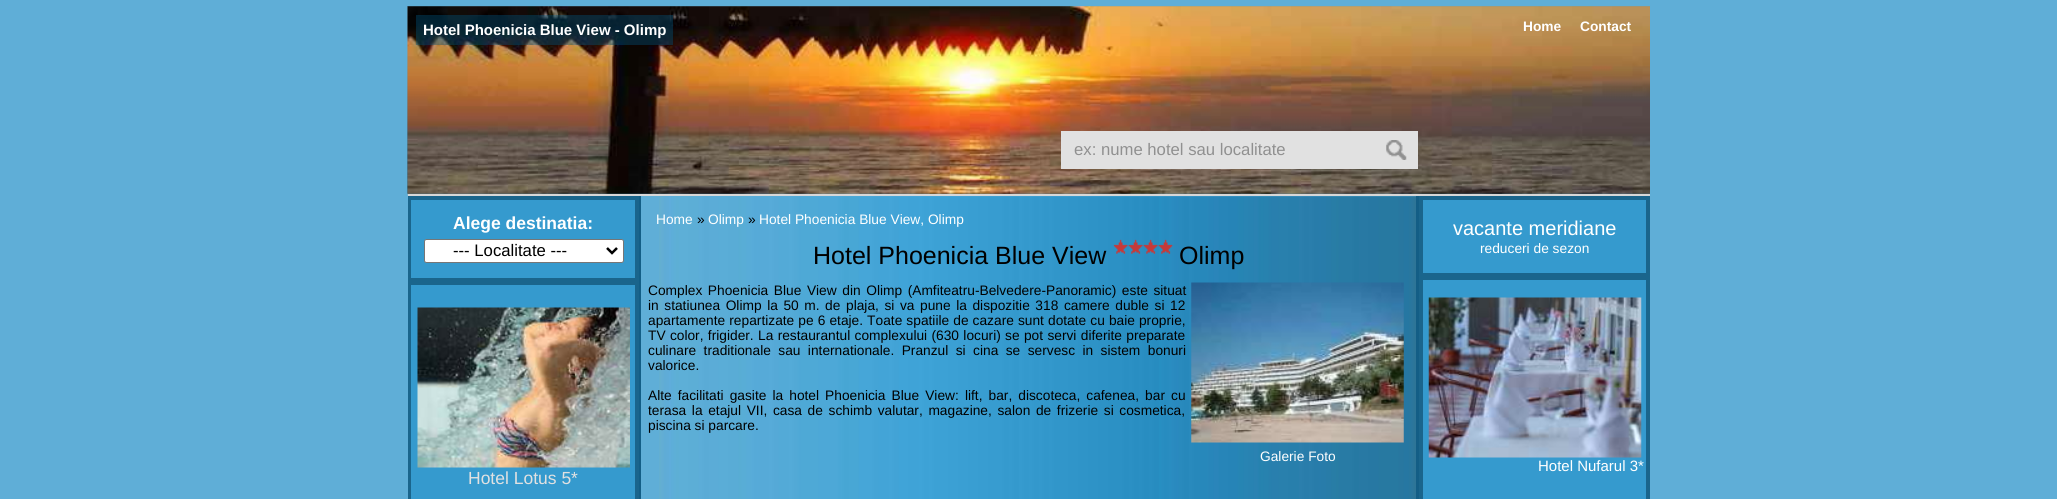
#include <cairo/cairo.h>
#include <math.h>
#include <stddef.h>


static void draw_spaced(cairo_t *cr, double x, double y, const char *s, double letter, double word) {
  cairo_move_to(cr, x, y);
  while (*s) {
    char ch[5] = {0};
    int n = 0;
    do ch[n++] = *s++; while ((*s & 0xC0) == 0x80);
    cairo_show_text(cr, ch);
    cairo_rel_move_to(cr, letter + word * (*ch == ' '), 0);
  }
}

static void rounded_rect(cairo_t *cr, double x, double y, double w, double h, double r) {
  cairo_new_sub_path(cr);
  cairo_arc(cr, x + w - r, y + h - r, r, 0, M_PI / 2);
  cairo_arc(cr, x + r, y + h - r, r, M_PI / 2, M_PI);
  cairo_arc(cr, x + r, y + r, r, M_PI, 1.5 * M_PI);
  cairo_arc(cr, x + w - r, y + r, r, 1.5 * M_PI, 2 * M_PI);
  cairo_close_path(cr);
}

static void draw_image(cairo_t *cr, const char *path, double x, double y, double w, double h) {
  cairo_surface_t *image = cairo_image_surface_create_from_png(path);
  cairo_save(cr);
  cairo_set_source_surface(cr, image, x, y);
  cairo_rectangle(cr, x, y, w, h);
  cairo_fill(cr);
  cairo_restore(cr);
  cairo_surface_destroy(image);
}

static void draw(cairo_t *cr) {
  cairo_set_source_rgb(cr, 95 / 255.0, 174 / 255.0, 215 / 255.0);
  cairo_paint(cr);
  draw_image(cr, "images/1.png", 407, 6, 1243, 191);
  cairo_set_source_rgb(cr, 215 / 255.0, 215 / 255.0, 215 / 255.0);
  cairo_rectangle(cr, 408, 194, 1242, 2);
  cairo_fill(cr);
  draw_image(cr, "images/2.png", 407, 6, 1243, 188);
  cairo_set_source_rgba(cr, 0, 83 / 255.0, 123 / 255.0, 0.4);
  cairo_rectangle(cr, 416, 15, 257, 30);
  cairo_fill(cr);
  cairo_set_source_rgb(cr, 225 / 255.0, 225 / 255.0, 225 / 255.0);
  cairo_rectangle(cr, 1061, 131, 357, 38);
  cairo_fill(cr);
  draw_image(cr, "images/3.png", 1386, 140, 21, 20);
  cairo_set_source_rgb(cr, 26 / 255.0, 101 / 255.0, 140 / 255.0);
  cairo_rectangle(cr, 408, 196, 231, 303);
  cairo_fill(cr);
  cairo_set_source_rgb(cr, 19 / 255.0, 94 / 255.0, 134 / 255.0);
  cairo_rectangle(cr, 639, 196, 2, 303);
  cairo_fill(cr);
  cairo_set_source_rgb(cr, 53 / 255.0, 154 / 255.0, 206 / 255.0);
  cairo_rectangle(cr, 411, 200, 224, 78);
  cairo_fill(cr);
  cairo_set_source_rgb(cr, 1, 1, 1);
  rounded_rect(cr, 424.5, 239.5, 199, 23, 2);
  cairo_fill_preserve(cr);
  cairo_set_source_rgb(cr, 118 / 255.0, 118 / 255.0, 118 / 255.0);
  cairo_set_line_width(cr, 1);
  cairo_stroke(cr);
  cairo_new_path(cr);
  cairo_move_to(cr, 607, 248);
  cairo_line_to(cr, 612, 253);
  cairo_line_to(cr, 617, 248);
  cairo_set_source_rgb(cr, 0, 0, 0);
  cairo_set_line_width(cr, 2.5);
  cairo_stroke(cr);
  cairo_set_source_rgb(cr, 53 / 255.0, 154 / 255.0, 206 / 255.0);
  cairo_rectangle(cr, 411, 285, 224, 214);
  cairo_fill(cr);
  draw_image(cr, "images/4.png", 417, 307, 213, 161);
  cairo_set_source_rgb(cr, 96 / 255.0, 175 / 255.0, 214 / 255.0);
  cairo_rectangle(cr, 641, 196, 775, 1);
  cairo_fill(cr);
  draw_image(cr, "images/5.png", 659, 196, 757, 303);
  draw_image(cr, "images/6.png", 1113, 239, 60, 15);
  draw_image(cr, "images/7.png", 1191, 282, 213, 161);
  cairo_set_source_rgb(cr, 26 / 255.0, 101 / 255.0, 140 / 255.0);
  cairo_rectangle(cr, 1419, 196, 231, 303);
  cairo_fill(cr);
  cairo_set_source_rgb(cr, 19 / 255.0, 94 / 255.0, 134 / 255.0);
  cairo_rectangle(cr, 1416, 196, 3, 303);
  cairo_fill(cr);
  cairo_set_source_rgb(cr, 53 / 255.0, 154 / 255.0, 206 / 255.0);
  cairo_rectangle(cr, 1423, 200, 223, 73);
  cairo_fill(cr);
  cairo_rectangle(cr, 1423, 280, 223, 219);
  cairo_fill(cr);
  draw_image(cr, "images/8.png", 1428, 297, 214, 161);
  cairo_select_font_face(cr, "Liberation Sans", CAIRO_FONT_SLANT_NORMAL, CAIRO_FONT_WEIGHT_BOLD);
  cairo_set_font_size(cr, 15);
  cairo_set_source_rgb(cr, 1, 1, 1);
  cairo_move_to(cr, 423, 35);
  cairo_show_text(cr, "Hotel Phoenicia Blue View - Olimp");
  cairo_set_font_size(cr, 13.75);
  cairo_move_to(cr, 1523, 31);
  cairo_show_text(cr, "Home");
  cairo_move_to(cr, 1580, 31);
  cairo_show_text(cr, "Contact");
  cairo_select_font_face(cr, "Liberation Sans", CAIRO_FONT_SLANT_NORMAL, CAIRO_FONT_WEIGHT_NORMAL);
  cairo_set_font_size(cr, 16.7);
  cairo_set_source_rgb(cr, 144 / 255.0, 144 / 255.0, 144 / 255.0);
  cairo_move_to(cr, 1074, 155);
  cairo_show_text(cr, "ex: nume hotel sau localitate");
  cairo_select_font_face(cr, "Liberation Sans", CAIRO_FONT_SLANT_NORMAL, CAIRO_FONT_WEIGHT_BOLD);
  cairo_set_font_size(cr, 17.5);
  cairo_set_source_rgb(cr, 1, 1, 1);
  cairo_move_to(cr, 453, 229);
  cairo_show_text(cr, "Alege destinatia:");
  cairo_select_font_face(cr, "Liberation Sans", CAIRO_FONT_SLANT_NORMAL, CAIRO_FONT_WEIGHT_NORMAL);
  cairo_set_font_size(cr, 16.7);
  cairo_set_source_rgb(cr, 0, 0, 0);
  cairo_move_to(cr, 453, 256);
  cairo_show_text(cr, "--- Localitate ---");
  cairo_set_font_size(cr, 17.5);
  cairo_set_source_rgb(cr, 225 / 255.0, 225 / 255.0, 225 / 255.0);
  cairo_move_to(cr, 468, 484);
  cairo_show_text(cr, "Hotel Lotus 5*");
  cairo_set_font_size(cr, 13.75);
  cairo_set_source_rgb(cr, 1, 1, 1);
  cairo_move_to(cr, 656, 224);
  cairo_show_text(cr, "Home");
  cairo_set_source_rgb(cr, 0, 0, 0);
  cairo_move_to(cr, 697, 224);
  cairo_show_text(cr, "»");
  cairo_set_source_rgb(cr, 1, 1, 1);
  cairo_move_to(cr, 708, 224);
  cairo_show_text(cr, "Olimp");
  cairo_set_source_rgb(cr, 0, 0, 0);
  cairo_move_to(cr, 748, 224);
  cairo_show_text(cr, "»");
  cairo_set_source_rgb(cr, 1, 1, 1);
  cairo_move_to(cr, 759, 224);
  cairo_show_text(cr, "Hotel Phoenicia Blue View, Olimp");
  cairo_set_font_size(cr, 25);
  cairo_set_source_rgb(cr, 0, 0, 0);
  cairo_move_to(cr, 813, 264);
  cairo_show_text(cr, "Hotel Phoenicia Blue View");
  cairo_move_to(cr, 1179, 264);
  cairo_show_text(cr, "Olimp");
  cairo_set_font_size(cr, 13.75);
  draw_spaced(cr, 648, 295, "Complex Phoenicia Blue View din Olimp (Amfiteatru-Belvedere-Panoramic) este situat", 0, 1.75);
  draw_spaced(cr, 648, 310, "in statiunea Olimp la 50 m. de plaja, si va pune la dispozitie 318 camere duble si 12", 0, 1.75);
  draw_spaced(cr, 648, 325, "apartamente repartizate pe 6 etaje. Toate spatiile de cazare sunt dotate cu baie proprie,", 0, 0.25);
  draw_spaced(cr, 648, 340, "TV color, frigider. La restaurantul complexului (630 locuri) se pot servi diferite preparate", 0, 0.5);
  draw_spaced(cr, 648, 355, "culinare traditionale sau internationale. Pranzul si cina se servesc in sistem bonuri", 0, 3.6);
  cairo_move_to(cr, 648, 370);
  cairo_show_text(cr, "valorice.");
  draw_spaced(cr, 648, 400, "Alte facilitati gasite la hotel Phoenicia Blue View: lift, bar, discoteca, cafenea, bar cu", 0, 2.25);
  draw_spaced(cr, 648, 415, "terasa la etajul VII, casa de schimb valutar, magazine, salon de frizerie si cosmetica,", 0, 1.8);
  cairo_move_to(cr, 648, 430);
  cairo_show_text(cr, "piscina si parcare.");
  cairo_set_source_rgb(cr, 1, 1, 1);
  cairo_move_to(cr, 1260, 461);
  cairo_show_text(cr, "Galerie Foto");
  cairo_set_font_size(cr, 20);
  cairo_move_to(cr, 1453, 235);
  cairo_show_text(cr, "vacante meridiane");
  cairo_set_font_size(cr, 13.75);
  cairo_move_to(cr, 1480, 253);
  cairo_show_text(cr, "reduceri de sezon");
  cairo_set_font_size(cr, 15);
  cairo_move_to(cr, 1538, 471);
  cairo_show_text(cr, "Hotel Nufarul 3*");
}

int main(void) {
  cairo_surface_t *surface = cairo_image_surface_create(CAIRO_FORMAT_RGB24, 2057, 499);
  cairo_t *cr = cairo_create(surface);
  cairo_font_options_t *options = cairo_font_options_create();
  cairo_font_options_set_hint_metrics(options, CAIRO_HINT_METRICS_OFF);
  cairo_font_options_set_hint_style(options, CAIRO_HINT_STYLE_NONE);
  cairo_set_font_options(cr, options);
  cairo_set_miter_limit(cr, 4);
  draw(cr);
  cairo_surface_write_to_png(surface, "out.png");
  cairo_font_options_destroy(options);
  cairo_destroy(cr);
  cairo_surface_destroy(surface);
  return 0;
}
